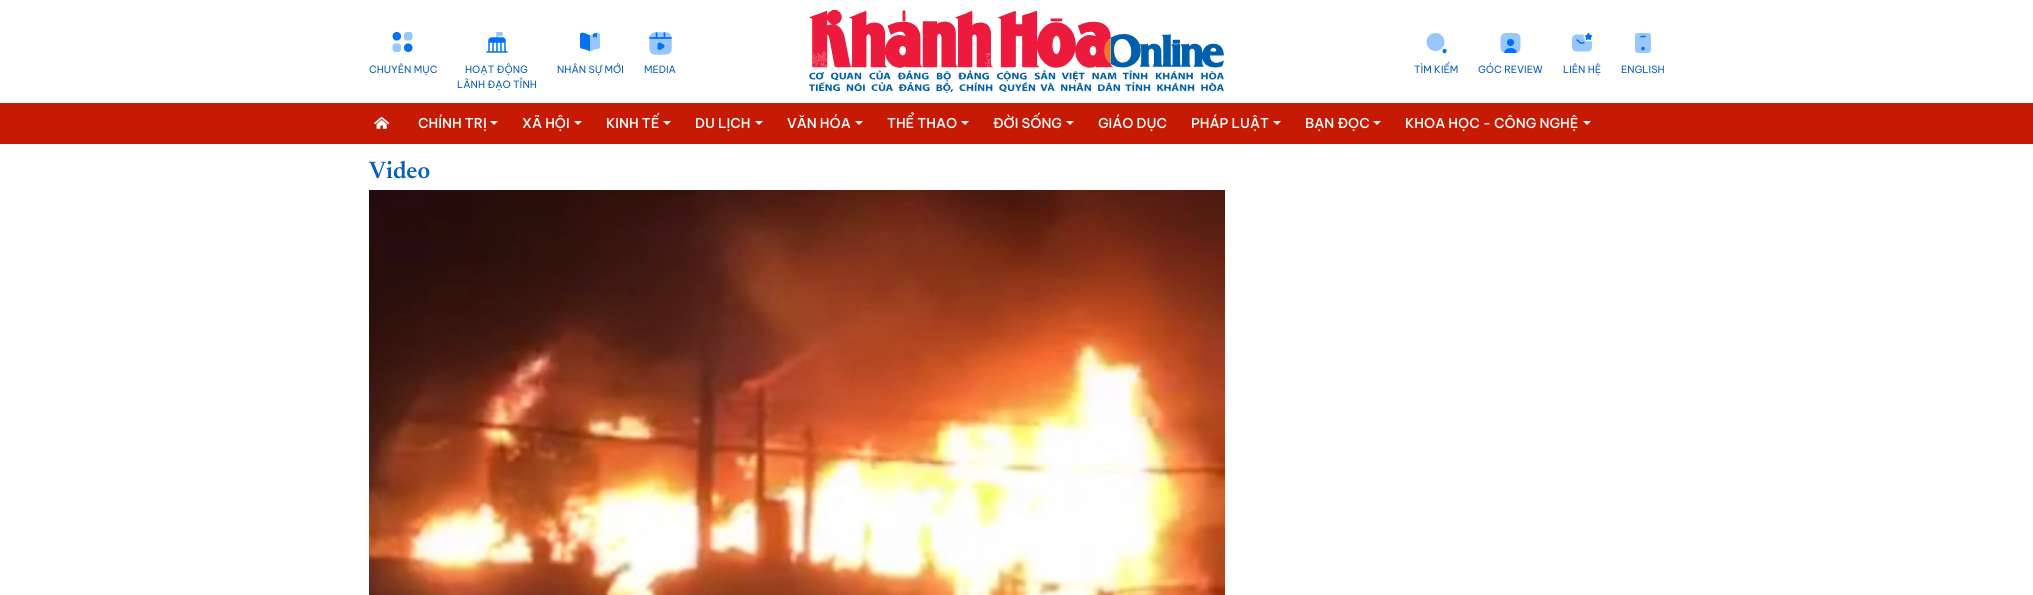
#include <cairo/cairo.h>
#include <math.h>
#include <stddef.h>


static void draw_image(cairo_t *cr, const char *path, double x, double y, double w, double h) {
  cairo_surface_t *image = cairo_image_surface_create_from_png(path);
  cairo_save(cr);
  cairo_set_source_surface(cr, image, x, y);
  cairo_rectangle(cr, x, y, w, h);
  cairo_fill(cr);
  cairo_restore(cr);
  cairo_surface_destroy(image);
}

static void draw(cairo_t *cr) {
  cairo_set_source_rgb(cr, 1, 1, 1);
  cairo_paint(cr);
  draw_image(cr, "images/1.png", 392, 32, 21, 20);
  draw_image(cr, "images/2.png", 486, 32, 22, 21);
  draw_image(cr, "images/3.png", 580, 32, 20, 20);
  draw_image(cr, "images/4.png", 649, 32, 23, 23);
  draw_image(cr, "images/5.png", 809, 10, 415, 83);
  draw_image(cr, "images/6.png", 1426, 33, 21, 21);
  draw_image(cr, "images/7.png", 1500, 33, 21, 20);
  draw_image(cr, "images/8.png", 1572, 33, 20, 19);
  draw_image(cr, "images/9.png", 1635, 33, 16, 20);
  cairo_set_source_rgb(cr, 199 / 255.0, 26 / 255.0, 4 / 255.0);
  cairo_rectangle(cr, 0, 103, 2033, 41);
  cairo_fill(cr);
  draw_image(cr, "images/10.png", 374, 117, 16, 12);
  cairo_set_source_rgb(cr, 254 / 255.0, 254 / 255.0, 254 / 255.0);
  cairo_new_path(cr);
  cairo_move_to(cr, 490, 121);
  cairo_line_to(cr, 498, 121);
  cairo_line_to(cr, 494, 125);
  cairo_close_path(cr);
  cairo_fill(cr);
  cairo_new_path(cr);
  cairo_move_to(cr, 574, 121);
  cairo_line_to(cr, 582, 121);
  cairo_line_to(cr, 578, 125);
  cairo_close_path(cr);
  cairo_fill(cr);
  cairo_new_path(cr);
  cairo_move_to(cr, 663, 121);
  cairo_line_to(cr, 671, 121);
  cairo_line_to(cr, 667, 125);
  cairo_close_path(cr);
  cairo_fill(cr);
  cairo_new_path(cr);
  cairo_move_to(cr, 755, 121);
  cairo_line_to(cr, 763, 121);
  cairo_line_to(cr, 759, 125);
  cairo_close_path(cr);
  cairo_fill(cr);
  cairo_new_path(cr);
  cairo_move_to(cr, 855, 121);
  cairo_line_to(cr, 863, 121);
  cairo_line_to(cr, 859, 125);
  cairo_close_path(cr);
  cairo_fill(cr);
  cairo_new_path(cr);
  cairo_move_to(cr, 961, 121);
  cairo_line_to(cr, 969, 121);
  cairo_line_to(cr, 965, 125);
  cairo_close_path(cr);
  cairo_fill(cr);
  cairo_new_path(cr);
  cairo_move_to(cr, 1066, 121);
  cairo_line_to(cr, 1074, 121);
  cairo_line_to(cr, 1070, 125);
  cairo_close_path(cr);
  cairo_fill(cr);
  cairo_new_path(cr);
  cairo_move_to(cr, 1273, 121);
  cairo_line_to(cr, 1281, 121);
  cairo_line_to(cr, 1277, 125);
  cairo_close_path(cr);
  cairo_fill(cr);
  cairo_new_path(cr);
  cairo_move_to(cr, 1373, 121);
  cairo_line_to(cr, 1381, 121);
  cairo_line_to(cr, 1377, 125);
  cairo_close_path(cr);
  cairo_fill(cr);
  cairo_new_path(cr);
  cairo_move_to(cr, 1583, 121);
  cairo_line_to(cr, 1591, 121);
  cairo_line_to(cr, 1587, 125);
  cairo_close_path(cr);
  cairo_fill(cr);
  draw_image(cr, "images/11.png", 369, 190, 856, 405);
  cairo_select_font_face(cr, "Be Vietnam Pro", CAIRO_FONT_SLANT_NORMAL, CAIRO_FONT_WEIGHT_NORMAL);
  cairo_set_font_size(cr, 10);
  cairo_set_source_rgb(cr, 10 / 255.0, 94 / 255.0, 193 / 255.0);
  cairo_move_to(cr, 369, 73);
  cairo_show_text(cr, "CHUYÊN MỤC");
  cairo_move_to(cr, 465, 73);
  cairo_show_text(cr, "HOẠT ĐỘNG");
  cairo_move_to(cr, 457, 88);
  cairo_show_text(cr, "LÃNH ĐẠO TỈNH");
  cairo_move_to(cr, 557, 73);
  cairo_show_text(cr, "NHÂN SỰ MỚI");
  cairo_move_to(cr, 644, 73);
  cairo_show_text(cr, "MEDIA");
  cairo_move_to(cr, 1414, 73);
  cairo_show_text(cr, "TÌM KIẾM");
  cairo_move_to(cr, 1478, 73);
  cairo_show_text(cr, "GÓC REVIEW");
  cairo_move_to(cr, 1563, 73);
  cairo_show_text(cr, "LIÊN HỆ");
  cairo_move_to(cr, 1621, 73);
  cairo_show_text(cr, "ENGLISH");
  cairo_select_font_face(cr, "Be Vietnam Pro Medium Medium", CAIRO_FONT_SLANT_NORMAL, CAIRO_FONT_WEIGHT_NORMAL);
  cairo_set_font_size(cr, 13.5);
  cairo_set_source_rgb(cr, 1, 1, 1);
  cairo_move_to(cr, 418, 128);
  cairo_show_text(cr, "CHÍNH TRỊ");
  cairo_move_to(cr, 522, 128);
  cairo_show_text(cr, "XÃ HỘI");
  cairo_move_to(cr, 606, 128);
  cairo_show_text(cr, "KINH TẾ");
  cairo_move_to(cr, 695, 128);
  cairo_show_text(cr, "DU LỊCH");
  cairo_move_to(cr, 787, 128);
  cairo_show_text(cr, "VĂN HÓA");
  cairo_move_to(cr, 887, 128);
  cairo_show_text(cr, "THỂ THAO");
  cairo_move_to(cr, 993, 128);
  cairo_show_text(cr, "ĐỜI SỐNG");
  cairo_move_to(cr, 1098, 128);
  cairo_show_text(cr, "GIÁO DỤC");
  cairo_move_to(cr, 1191, 128);
  cairo_show_text(cr, "PHÁP LUẬT");
  cairo_move_to(cr, 1305, 128);
  cairo_show_text(cr, "BẠN ĐỌC");
  cairo_move_to(cr, 1405, 128);
  cairo_show_text(cr, "KHOA HỌC - CÔNG NGHỆ");
  cairo_select_font_face(cr, "Newsreader SemiBold", CAIRO_FONT_SLANT_NORMAL, CAIRO_FONT_WEIGHT_NORMAL);
  cairo_set_font_size(cr, 24);
  cairo_set_source_rgb(cr, 10 / 255.0, 94 / 255.0, 193 / 255.0);
  cairo_move_to(cr, 369, 178);
  cairo_show_text(cr, "Video");
}

int main(void) {
  cairo_surface_t *surface = cairo_image_surface_create(CAIRO_FORMAT_RGB24, 2033, 595);
  cairo_t *cr = cairo_create(surface);
  cairo_font_options_t *options = cairo_font_options_create();
  cairo_font_options_set_hint_metrics(options, CAIRO_HINT_METRICS_OFF);
  cairo_font_options_set_hint_style(options, CAIRO_HINT_STYLE_NONE);
  cairo_set_font_options(cr, options);
  cairo_set_miter_limit(cr, 4);
  draw(cr);
  cairo_surface_write_to_png(surface, "out.png");
  cairo_font_options_destroy(options);
  cairo_destroy(cr);
  cairo_surface_destroy(surface);
  return 0;
}
